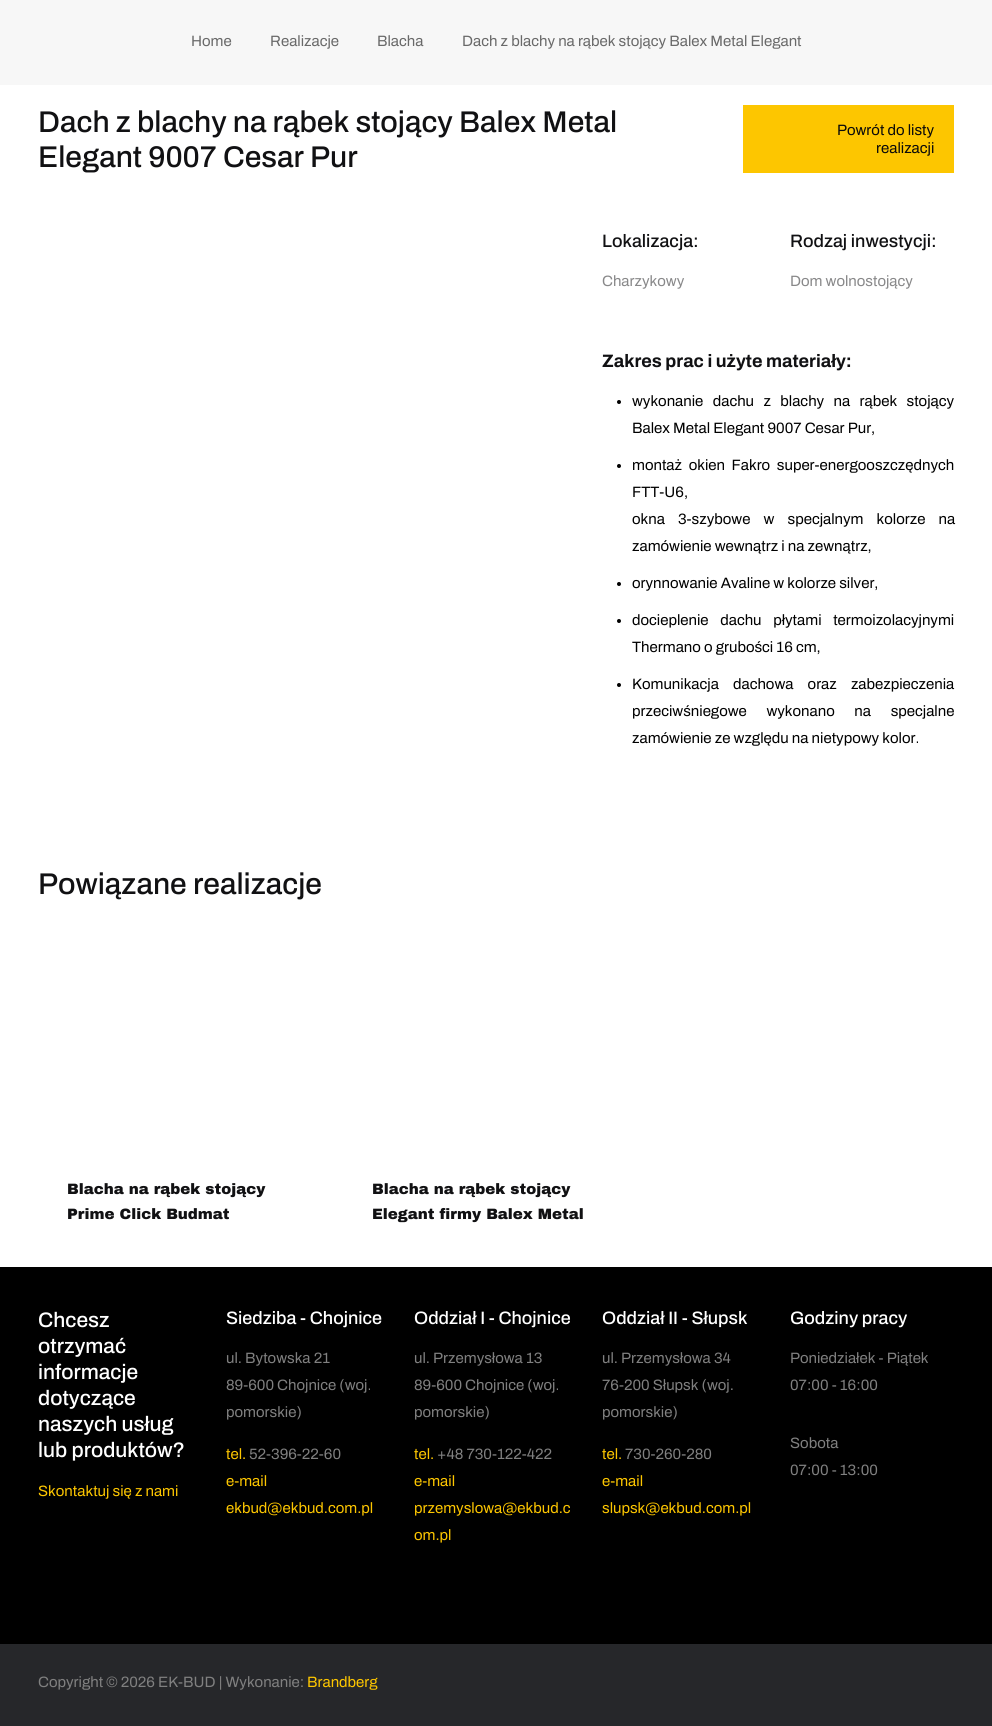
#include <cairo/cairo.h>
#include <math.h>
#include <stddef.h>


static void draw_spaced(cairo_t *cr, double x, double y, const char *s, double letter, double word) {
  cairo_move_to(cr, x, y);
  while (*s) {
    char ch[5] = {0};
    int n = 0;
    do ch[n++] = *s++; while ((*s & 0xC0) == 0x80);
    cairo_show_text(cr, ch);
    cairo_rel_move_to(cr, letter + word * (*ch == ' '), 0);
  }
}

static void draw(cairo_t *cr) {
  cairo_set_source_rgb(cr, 1, 1, 1);
  cairo_paint(cr);
  cairo_set_source_rgb(cr, 247 / 255.0, 247 / 255.0, 247 / 255.0);
  cairo_rectangle(cr, 0, 0, 992, 85);
  cairo_fill(cr);
  cairo_set_source_rgb(cr, 253 / 255.0, 198 / 255.0, 0);
  cairo_rectangle(cr, 743, 105, 211, 68);
  cairo_fill(cr);
  cairo_set_source_rgb(cr, 0, 0, 0);
  cairo_arc(cr, 619, 402, 2, 0, 2 * M_PI);
  cairo_fill(cr);
  cairo_arc(cr, 619, 466, 2, 0, 2 * M_PI);
  cairo_fill(cr);
  cairo_arc(cr, 619, 584, 2, 0, 2 * M_PI);
  cairo_fill(cr);
  cairo_arc(cr, 619, 621, 2, 0, 2 * M_PI);
  cairo_fill(cr);
  cairo_arc(cr, 619, 685, 2, 0, 2 * M_PI);
  cairo_fill(cr);
  cairo_rectangle(cr, 0, 1267, 992, 377);
  cairo_fill(cr);
  cairo_set_source_rgb(cr, 38 / 255.0, 39 / 255.0, 42 / 255.0);
  cairo_rectangle(cr, 0, 1644, 992, 82);
  cairo_fill(cr);
  cairo_select_font_face(cr, "Archivo", CAIRO_FONT_SLANT_NORMAL, CAIRO_FONT_WEIGHT_NORMAL);
  cairo_set_font_size(cr, 15);
  cairo_set_source_rgb(cr, 105 / 255.0, 105 / 255.0, 105 / 255.0);
  cairo_move_to(cr, 191, 46);
  cairo_show_text(cr, "Home");
  cairo_move_to(cr, 270, 46);
  cairo_show_text(cr, "Realizacje");
  cairo_move_to(cr, 377, 46);
  cairo_show_text(cr, "Blacha");
  cairo_move_to(cr, 462, 46);
  cairo_show_text(cr, "Dach z blachy na rąbek stojący Balex Metal Elegant");
  cairo_select_font_face(cr, "Archivo Medium", CAIRO_FONT_SLANT_NORMAL, CAIRO_FONT_WEIGHT_NORMAL);
  cairo_set_font_size(cr, 30);
  cairo_set_source_rgb(cr, 17 / 255.0, 17 / 255.0, 19 / 255.0);
  cairo_move_to(cr, 38, 132);
  cairo_show_text(cr, "Dach z blachy na rąbek stojący Balex Metal");
  cairo_move_to(cr, 38, 167);
  cairo_show_text(cr, "Elegant 9007 Cesar Pur");
  cairo_select_font_face(cr, "Archivo", CAIRO_FONT_SLANT_NORMAL, CAIRO_FONT_WEIGHT_NORMAL);
  cairo_set_font_size(cr, 15);
  cairo_set_source_rgb(cr, 10 / 255.0, 10 / 255.0, 10 / 255.0);
  cairo_move_to(cr, 837, 135);
  cairo_show_text(cr, "Powrót do listy");
  cairo_move_to(cr, 876, 153);
  cairo_show_text(cr, "realizacji");
  cairo_select_font_face(cr, "Archivo Medium", CAIRO_FONT_SLANT_NORMAL, CAIRO_FONT_WEIGHT_NORMAL);
  cairo_set_font_size(cr, 18);
  cairo_set_source_rgb(cr, 17 / 255.0, 17 / 255.0, 19 / 255.0);
  cairo_move_to(cr, 602, 247);
  cairo_show_text(cr, "Lokalizacja:");
  cairo_select_font_face(cr, "Archivo", CAIRO_FONT_SLANT_NORMAL, CAIRO_FONT_WEIGHT_NORMAL);
  cairo_set_font_size(cr, 15);
  cairo_set_source_rgb(cr, 136 / 255.0, 136 / 255.0, 137 / 255.0);
  cairo_move_to(cr, 602, 286);
  cairo_show_text(cr, "Charzykowy");
  cairo_select_font_face(cr, "Archivo Medium", CAIRO_FONT_SLANT_NORMAL, CAIRO_FONT_WEIGHT_NORMAL);
  cairo_set_font_size(cr, 18);
  cairo_set_source_rgb(cr, 17 / 255.0, 17 / 255.0, 19 / 255.0);
  cairo_move_to(cr, 790, 247);
  cairo_show_text(cr, "Rodzaj inwestycji:");
  cairo_select_font_face(cr, "Archivo", CAIRO_FONT_SLANT_NORMAL, CAIRO_FONT_WEIGHT_NORMAL);
  cairo_set_font_size(cr, 15);
  cairo_set_source_rgb(cr, 136 / 255.0, 136 / 255.0, 137 / 255.0);
  cairo_move_to(cr, 790, 286);
  cairo_show_text(cr, "Dom wolnostojący");
  cairo_select_font_face(cr, "Archivo", CAIRO_FONT_SLANT_NORMAL, CAIRO_FONT_WEIGHT_BOLD);
  cairo_set_font_size(cr, 18);
  cairo_set_source_rgb(cr, 17 / 255.0, 17 / 255.0, 19 / 255.0);
  cairo_move_to(cr, 602, 367);
  cairo_show_text(cr, "Zakres prac i użyte materiały:");
  cairo_select_font_face(cr, "Archivo", CAIRO_FONT_SLANT_NORMAL, CAIRO_FONT_WEIGHT_NORMAL);
  cairo_set_font_size(cr, 15);
  cairo_set_source_rgb(cr, 0, 0, 0);
  draw_spaced(cr, 632, 406, "wykonanie dachu z blachy na rąbek stojący", 0, 6.25);
  cairo_move_to(cr, 632, 433);
  cairo_show_text(cr, "Balex Metal Elegant 9007 Cesar Pur,");
  draw_spaced(cr, 632, 470, "montaż okien Fakro super-energooszczędnych", 0, 3.5);
  cairo_move_to(cr, 632, 497);
  cairo_show_text(cr, "FTT-U6,");
  draw_spaced(cr, 632, 524, "okna 3-szybowe w specjalnym kolorze na", 0, 10);
  cairo_move_to(cr, 632, 551);
  cairo_show_text(cr, "zamówienie wewnątrz i na zewnątrz,");
  cairo_move_to(cr, 632, 588);
  cairo_show_text(cr, "orynnowanie Avaline w kolorze silver,");
  draw_spaced(cr, 632, 625, "docieplenie dachu płytami termoizolacyjnymi", 0, 8.5);
  cairo_move_to(cr, 632, 652);
  cairo_show_text(cr, "Thermano o grubości 16 cm,");
  draw_spaced(cr, 632, 689, "Komunikacja dachowa oraz zabezpieczenia", 0, 11);
  draw_spaced(cr, 632, 716, "przeciwśniegowe wykonano na specjalne", 0, 16.5);
  cairo_move_to(cr, 632, 743);
  cairo_show_text(cr, "zamówienie ze względu na nietypowy kolor.");
  cairo_select_font_face(cr, "Archivo Medium", CAIRO_FONT_SLANT_NORMAL, CAIRO_FONT_WEIGHT_NORMAL);
  cairo_set_font_size(cr, 30);
  cairo_set_source_rgb(cr, 17 / 255.0, 17 / 255.0, 19 / 255.0);
  cairo_move_to(cr, 38, 894);
  cairo_show_text(cr, "Powiązane realizacje");
  cairo_select_font_face(cr, "Archivo Black Black", CAIRO_FONT_SLANT_NORMAL, CAIRO_FONT_WEIGHT_NORMAL);
  cairo_set_font_size(cr, 15);
  cairo_move_to(cr, 67, 1194);
  cairo_show_text(cr, "Blacha na rąbek stojący");
  cairo_move_to(cr, 67, 1219);
  cairo_show_text(cr, "Prime Click Budmat");
  cairo_move_to(cr, 372, 1194);
  cairo_show_text(cr, "Blacha na rąbek stojący");
  cairo_move_to(cr, 372, 1219);
  cairo_show_text(cr, "Elegant firmy Balex Metal");
  cairo_select_font_face(cr, "Archivo Medium", CAIRO_FONT_SLANT_NORMAL, CAIRO_FONT_WEIGHT_NORMAL);
  cairo_set_font_size(cr, 21);
  cairo_set_source_rgb(cr, 1, 1, 1);
  cairo_move_to(cr, 38, 1327);
  cairo_show_text(cr, "Chcesz");
  cairo_move_to(cr, 38, 1353);
  cairo_show_text(cr, "otrzymać");
  cairo_move_to(cr, 38, 1379);
  cairo_show_text(cr, "informacje");
  cairo_move_to(cr, 38, 1405);
  cairo_show_text(cr, "dotyczące");
  cairo_move_to(cr, 38, 1431);
  cairo_show_text(cr, "naszych usług");
  cairo_move_to(cr, 38, 1457);
  cairo_show_text(cr, "lub produktów?");
  cairo_select_font_face(cr, "Archivo", CAIRO_FONT_SLANT_NORMAL, CAIRO_FONT_WEIGHT_NORMAL);
  cairo_set_font_size(cr, 15);
  cairo_set_source_rgb(cr, 253 / 255.0, 198 / 255.0, 0);
  cairo_move_to(cr, 38, 1496);
  cairo_show_text(cr, "Skontaktuj się z nami");
  cairo_select_font_face(cr, "Archivo Medium", CAIRO_FONT_SLANT_NORMAL, CAIRO_FONT_WEIGHT_NORMAL);
  cairo_set_font_size(cr, 18);
  cairo_set_source_rgb(cr, 1, 1, 1);
  cairo_move_to(cr, 226, 1324);
  cairo_show_text(cr, "Siedziba - Chojnice");
  cairo_select_font_face(cr, "Archivo", CAIRO_FONT_SLANT_NORMAL, CAIRO_FONT_WEIGHT_NORMAL);
  cairo_set_font_size(cr, 15);
  cairo_set_source_rgb(cr, 128 / 255.0, 128 / 255.0, 128 / 255.0);
  cairo_move_to(cr, 226, 1363);
  cairo_show_text(cr, "ul. Bytowska 21");
  cairo_move_to(cr, 226, 1390);
  cairo_show_text(cr, "89-600 Chojnice (woj.");
  cairo_move_to(cr, 226, 1417);
  cairo_show_text(cr, "pomorskie)");
  cairo_set_source_rgb(cr, 253 / 255.0, 198 / 255.0, 0);
  cairo_move_to(cr, 226, 1459);
  cairo_show_text(cr, "tel.");
  cairo_set_source_rgb(cr, 128 / 255.0, 128 / 255.0, 128 / 255.0);
  cairo_move_to(cr, 249, 1459);
  cairo_show_text(cr, "52-396-22-60");
  cairo_set_source_rgb(cr, 253 / 255.0, 198 / 255.0, 0);
  cairo_move_to(cr, 226, 1486);
  cairo_show_text(cr, "e-mail");
  cairo_move_to(cr, 226, 1513);
  cairo_show_text(cr, "ekbud@ekbud.com.pl");
  cairo_select_font_face(cr, "Archivo Medium", CAIRO_FONT_SLANT_NORMAL, CAIRO_FONT_WEIGHT_NORMAL);
  cairo_set_font_size(cr, 18);
  cairo_set_source_rgb(cr, 1, 1, 1);
  cairo_move_to(cr, 414, 1324);
  cairo_show_text(cr, "Oddział I - Chojnice");
  cairo_select_font_face(cr, "Archivo", CAIRO_FONT_SLANT_NORMAL, CAIRO_FONT_WEIGHT_NORMAL);
  cairo_set_font_size(cr, 15);
  cairo_set_source_rgb(cr, 128 / 255.0, 128 / 255.0, 128 / 255.0);
  cairo_move_to(cr, 414, 1363);
  cairo_show_text(cr, "ul. Przemysłowa 13");
  cairo_move_to(cr, 414, 1390);
  cairo_show_text(cr, "89-600 Chojnice (woj.");
  cairo_move_to(cr, 414, 1417);
  cairo_show_text(cr, "pomorskie)");
  cairo_set_source_rgb(cr, 253 / 255.0, 198 / 255.0, 0);
  cairo_move_to(cr, 414, 1459);
  cairo_show_text(cr, "tel.");
  cairo_set_source_rgb(cr, 128 / 255.0, 128 / 255.0, 128 / 255.0);
  cairo_move_to(cr, 437, 1459);
  cairo_show_text(cr, "+48 730-122-422");
  cairo_set_source_rgb(cr, 253 / 255.0, 198 / 255.0, 0);
  cairo_move_to(cr, 414, 1486);
  cairo_show_text(cr, "e-mail");
  cairo_move_to(cr, 414, 1513);
  cairo_show_text(cr, "przemyslowa@ekbud.c");
  cairo_move_to(cr, 414, 1540);
  cairo_show_text(cr, "om.pl");
  cairo_select_font_face(cr, "Archivo Medium", CAIRO_FONT_SLANT_NORMAL, CAIRO_FONT_WEIGHT_NORMAL);
  cairo_set_font_size(cr, 18);
  cairo_set_source_rgb(cr, 1, 1, 1);
  cairo_move_to(cr, 602, 1324);
  cairo_show_text(cr, "Oddział II - Słupsk");
  cairo_select_font_face(cr, "Archivo", CAIRO_FONT_SLANT_NORMAL, CAIRO_FONT_WEIGHT_NORMAL);
  cairo_set_font_size(cr, 15);
  cairo_set_source_rgb(cr, 128 / 255.0, 128 / 255.0, 128 / 255.0);
  cairo_move_to(cr, 602, 1363);
  cairo_show_text(cr, "ul. Przemysłowa 34");
  cairo_move_to(cr, 602, 1390);
  cairo_show_text(cr, "76-200 Słupsk (woj.");
  cairo_move_to(cr, 602, 1417);
  cairo_show_text(cr, "pomorskie)");
  cairo_set_source_rgb(cr, 253 / 255.0, 198 / 255.0, 0);
  cairo_move_to(cr, 602, 1459);
  cairo_show_text(cr, "tel.");
  cairo_set_source_rgb(cr, 128 / 255.0, 128 / 255.0, 128 / 255.0);
  cairo_move_to(cr, 625, 1459);
  cairo_show_text(cr, "730-260-280");
  cairo_set_source_rgb(cr, 253 / 255.0, 198 / 255.0, 0);
  cairo_move_to(cr, 602, 1486);
  cairo_show_text(cr, "e-mail");
  cairo_move_to(cr, 602, 1513);
  cairo_show_text(cr, "slupsk@ekbud.com.pl");
  cairo_select_font_face(cr, "Archivo Medium", CAIRO_FONT_SLANT_NORMAL, CAIRO_FONT_WEIGHT_NORMAL);
  cairo_set_font_size(cr, 18);
  cairo_set_source_rgb(cr, 1, 1, 1);
  cairo_move_to(cr, 790, 1324);
  cairo_show_text(cr, "Godziny pracy");
  cairo_select_font_face(cr, "Archivo", CAIRO_FONT_SLANT_NORMAL, CAIRO_FONT_WEIGHT_NORMAL);
  cairo_set_font_size(cr, 15);
  cairo_set_source_rgb(cr, 128 / 255.0, 128 / 255.0, 128 / 255.0);
  cairo_move_to(cr, 790, 1363);
  cairo_show_text(cr, "Poniedziałek - Piątek");
  cairo_move_to(cr, 790, 1390);
  cairo_show_text(cr, "07:00 - 16:00");
  cairo_move_to(cr, 790, 1448);
  cairo_show_text(cr, "Sobota");
  cairo_move_to(cr, 790, 1475);
  cairo_show_text(cr, "07:00 - 13:00");
  cairo_move_to(cr, 38, 1687);
  cairo_show_text(cr, "Copyright © 2026 EK-BUD | Wykonanie:");
  cairo_set_source_rgb(cr, 253 / 255.0, 198 / 255.0, 0);
  cairo_move_to(cr, 307, 1687);
  cairo_show_text(cr, "Brandberg");
}

int main(void) {
  cairo_surface_t *surface = cairo_image_surface_create(CAIRO_FORMAT_RGB24, 992, 1726);
  cairo_t *cr = cairo_create(surface);
  cairo_font_options_t *options = cairo_font_options_create();
  cairo_font_options_set_hint_metrics(options, CAIRO_HINT_METRICS_OFF);
  cairo_font_options_set_hint_style(options, CAIRO_HINT_STYLE_NONE);
  cairo_set_font_options(cr, options);
  cairo_set_miter_limit(cr, 4);
  draw(cr);
  cairo_surface_write_to_png(surface, "out.png");
  cairo_font_options_destroy(options);
  cairo_destroy(cr);
  cairo_surface_destroy(surface);
  return 0;
}
